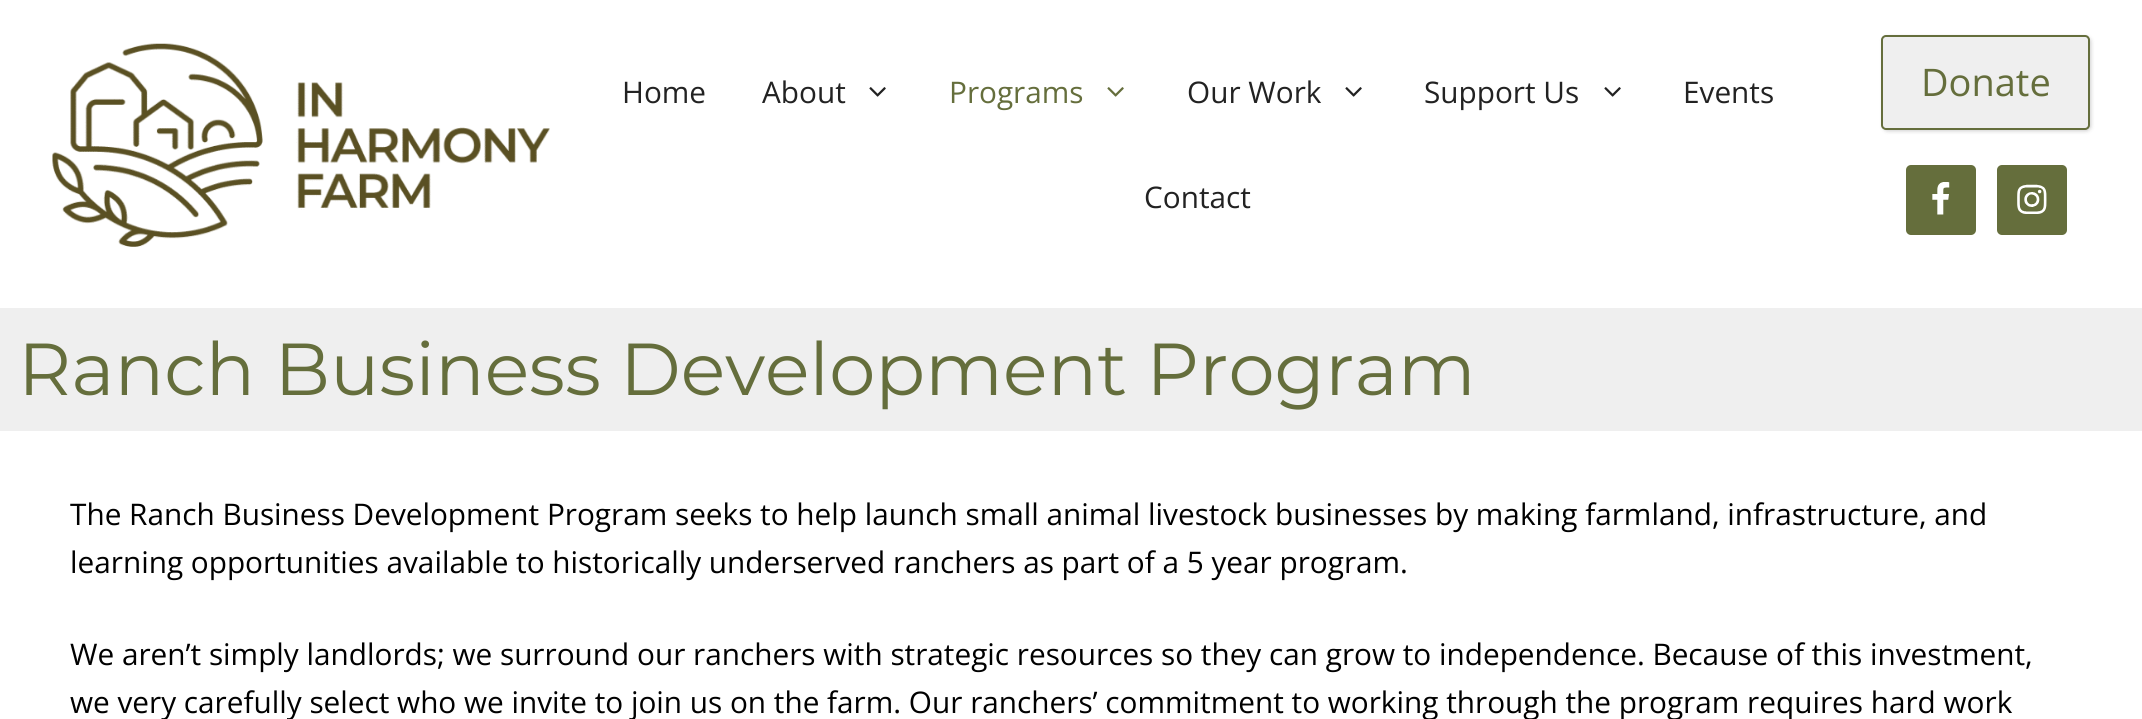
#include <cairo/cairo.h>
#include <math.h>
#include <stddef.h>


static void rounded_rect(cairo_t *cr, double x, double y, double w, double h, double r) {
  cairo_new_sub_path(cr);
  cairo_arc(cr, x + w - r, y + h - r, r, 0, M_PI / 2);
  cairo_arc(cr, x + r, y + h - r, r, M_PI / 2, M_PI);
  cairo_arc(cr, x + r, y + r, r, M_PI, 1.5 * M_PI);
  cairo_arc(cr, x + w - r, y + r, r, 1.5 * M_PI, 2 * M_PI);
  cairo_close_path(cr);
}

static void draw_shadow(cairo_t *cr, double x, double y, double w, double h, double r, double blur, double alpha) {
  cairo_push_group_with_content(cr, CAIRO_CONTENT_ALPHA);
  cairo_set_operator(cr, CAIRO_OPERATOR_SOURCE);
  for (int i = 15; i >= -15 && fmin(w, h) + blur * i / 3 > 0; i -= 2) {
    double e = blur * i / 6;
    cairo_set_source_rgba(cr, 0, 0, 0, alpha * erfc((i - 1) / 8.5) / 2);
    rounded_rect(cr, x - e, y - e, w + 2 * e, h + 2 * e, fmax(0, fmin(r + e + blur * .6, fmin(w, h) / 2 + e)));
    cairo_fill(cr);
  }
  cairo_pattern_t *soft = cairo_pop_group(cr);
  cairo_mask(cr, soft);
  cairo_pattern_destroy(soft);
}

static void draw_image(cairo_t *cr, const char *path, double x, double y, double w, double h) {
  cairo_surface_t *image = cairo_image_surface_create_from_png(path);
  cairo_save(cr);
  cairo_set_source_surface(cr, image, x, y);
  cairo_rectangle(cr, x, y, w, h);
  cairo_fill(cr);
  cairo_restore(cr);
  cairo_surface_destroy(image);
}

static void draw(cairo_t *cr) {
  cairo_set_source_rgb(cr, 1, 1, 1);
  cairo_paint(cr);
  draw_image(cr, "images/1.png", 52, 43, 498, 204);
  draw_image(cr, "images/2.png", 869, 87, 17, 10);
  draw_image(cr, "images/3.png", 1107, 87, 17, 10);
  draw_image(cr, "images/2.png", 1345, 87, 17, 10);
  draw_image(cr, "images/2.png", 1604, 87, 17, 10);
  cairo_set_source_rgb(cr, 0, 0, 0);
  draw_shadow(cr, 1883, 37, 208, 94, 5, 2, 0.2);
  cairo_set_source_rgb(cr, 239 / 255.0, 239 / 255.0, 239 / 255.0);
  rounded_rect(cr, 1882, 36, 207, 93, 4);
  cairo_fill_preserve(cr);
  cairo_set_source_rgb(cr, 101 / 255.0, 110 / 255.0, 60 / 255.0);
  cairo_stroke(cr);
  rounded_rect(cr, 1906, 165, 70, 70, 5);
  cairo_fill(cr);
  draw_image(cr, "images/4.png", 1932, 182, 18, 33);
  rounded_rect(cr, 1997, 165, 70, 70, 5);
  cairo_fill(cr);
  draw_image(cr, "images/5.png", 2017, 184, 30, 30);
  cairo_set_source_rgb(cr, 239 / 255.0, 239 / 255.0, 239 / 255.0);
  cairo_rectangle(cr, 0, 308, 2142, 123);
  cairo_fill(cr);
  cairo_select_font_face(cr, "Open Sans", CAIRO_FONT_SLANT_NORMAL, CAIRO_FONT_WEIGHT_NORMAL);
  cairo_set_font_size(cr, 29.75);
  cairo_set_source_rgb(cr, 34 / 255.0, 34 / 255.0, 34 / 255.0);
  cairo_move_to(cr, 622, 103);
  cairo_show_text(cr, "Home");
  cairo_move_to(cr, 762, 103);
  cairo_show_text(cr, "About");
  cairo_set_source_rgb(cr, 101 / 255.0, 110 / 255.0, 60 / 255.0);
  cairo_move_to(cr, 949, 103);
  cairo_show_text(cr, "Programs");
  cairo_set_source_rgb(cr, 34 / 255.0, 34 / 255.0, 34 / 255.0);
  cairo_move_to(cr, 1187, 103);
  cairo_show_text(cr, "Our Work");
  cairo_move_to(cr, 1424, 103);
  cairo_show_text(cr, "Support Us");
  cairo_move_to(cr, 1683, 103);
  cairo_show_text(cr, "Events");
  cairo_move_to(cr, 1144, 208);
  cairo_show_text(cr, "Contact");
  cairo_set_font_size(cr, 38);
  cairo_set_source_rgb(cr, 101 / 255.0, 110 / 255.0, 60 / 255.0);
  cairo_move_to(cr, 1921, 96);
  cairo_show_text(cr, "Donate");
  cairo_select_font_face(cr, "Montserrat", CAIRO_FONT_SLANT_NORMAL, CAIRO_FONT_WEIGHT_NORMAL);
  cairo_set_font_size(cr, 73.5);
  cairo_move_to(cr, 18, 395);
  cairo_show_text(cr, "Ranch Business Development Program");
  cairo_select_font_face(cr, "Open Sans", CAIRO_FONT_SLANT_NORMAL, CAIRO_FONT_WEIGHT_NORMAL);
  cairo_set_font_size(cr, 29.75);
  cairo_set_source_rgb(cr, 0, 0, 0);
  cairo_move_to(cr, 70, 525);
  cairo_show_text(cr, "The Ranch Business Development Program seeks to help launch small animal livestock businesses by making farmland, infrastructure, and");
  cairo_move_to(cr, 70, 573);
  cairo_show_text(cr, "learning opportunities available to historically underserved ranchers as part of a 5 year program.");
  cairo_move_to(cr, 70, 665);
  cairo_show_text(cr, "We aren’t simply landlords; we surround our ranchers with strategic resources so they can grow to independence. Because of this investment,");
  cairo_move_to(cr, 70, 713);
  cairo_show_text(cr, "we very carefully select who we invite to join us on the farm. Our ranchers’ commitment to working through the program requires hard work");
}

int main(void) {
  cairo_surface_t *surface = cairo_image_surface_create(CAIRO_FORMAT_RGB24, 2142, 719);
  cairo_t *cr = cairo_create(surface);
  cairo_font_options_t *options = cairo_font_options_create();
  cairo_font_options_set_hint_metrics(options, CAIRO_HINT_METRICS_OFF);
  cairo_font_options_set_hint_style(options, CAIRO_HINT_STYLE_NONE);
  cairo_set_font_options(cr, options);
  cairo_set_miter_limit(cr, 4);
  draw(cr);
  cairo_surface_write_to_png(surface, "out.png");
  cairo_font_options_destroy(options);
  cairo_destroy(cr);
  cairo_surface_destroy(surface);
  return 0;
}
